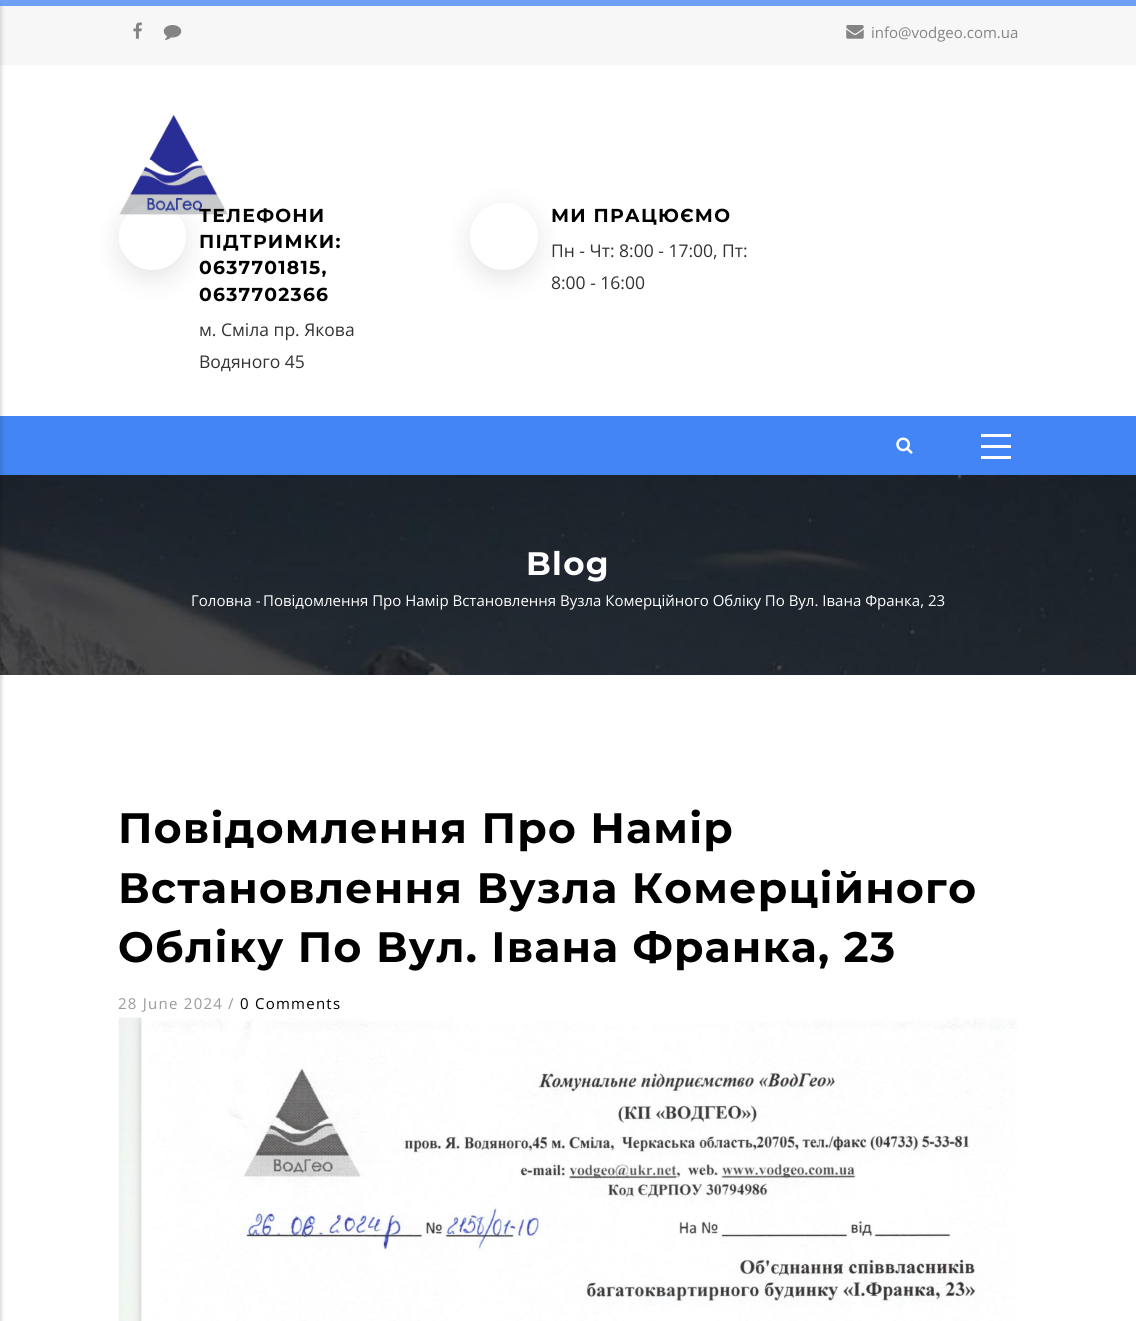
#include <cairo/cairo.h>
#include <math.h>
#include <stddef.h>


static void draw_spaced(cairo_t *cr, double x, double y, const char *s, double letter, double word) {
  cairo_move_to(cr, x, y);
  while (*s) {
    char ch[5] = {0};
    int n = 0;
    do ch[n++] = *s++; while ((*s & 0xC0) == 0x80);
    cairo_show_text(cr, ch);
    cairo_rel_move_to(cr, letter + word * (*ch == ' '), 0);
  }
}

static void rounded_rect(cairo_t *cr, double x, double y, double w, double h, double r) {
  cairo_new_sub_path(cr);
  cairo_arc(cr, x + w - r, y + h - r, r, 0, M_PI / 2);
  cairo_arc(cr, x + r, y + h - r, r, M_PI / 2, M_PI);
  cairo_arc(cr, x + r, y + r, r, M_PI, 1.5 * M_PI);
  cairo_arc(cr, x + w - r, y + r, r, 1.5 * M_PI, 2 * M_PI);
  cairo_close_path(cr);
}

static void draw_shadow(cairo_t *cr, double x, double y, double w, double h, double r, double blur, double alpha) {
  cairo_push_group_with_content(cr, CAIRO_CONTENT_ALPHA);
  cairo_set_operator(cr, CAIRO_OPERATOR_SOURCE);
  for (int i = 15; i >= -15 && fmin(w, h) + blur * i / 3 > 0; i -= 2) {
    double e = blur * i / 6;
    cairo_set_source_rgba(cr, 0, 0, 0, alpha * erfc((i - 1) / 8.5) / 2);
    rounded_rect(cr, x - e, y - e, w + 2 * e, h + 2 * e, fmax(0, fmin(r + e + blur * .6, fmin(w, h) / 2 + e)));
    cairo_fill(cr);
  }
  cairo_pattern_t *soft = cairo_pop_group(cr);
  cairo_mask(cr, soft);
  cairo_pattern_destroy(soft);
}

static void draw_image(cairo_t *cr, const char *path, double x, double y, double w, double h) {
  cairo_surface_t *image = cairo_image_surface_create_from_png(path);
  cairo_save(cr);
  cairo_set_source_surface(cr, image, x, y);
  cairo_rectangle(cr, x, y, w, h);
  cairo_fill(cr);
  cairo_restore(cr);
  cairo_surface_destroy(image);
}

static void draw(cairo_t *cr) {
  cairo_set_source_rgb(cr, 1, 1, 1);
  cairo_paint(cr);
  cairo_set_source_rgb(cr, 67 / 255.0, 133 / 255.0, 245 / 255.0);
  cairo_rectangle(cr, 0, 416, 1136, 59);
  cairo_fill(cr);
  cairo_set_source_rgb(cr, 247 / 255.0, 247 / 255.0, 247 / 255.0);
  cairo_rectangle(cr, 0, 0, 1136, 65);
  cairo_fill(cr);
  draw_image(cr, "images/6.png", 0, 475, 1136, 200);
  cairo_set_source_rgb(cr, 0, 0, 0);
  draw_shadow(cr, -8, 4, 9, 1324, 0, 2.5, 0.2);
  cairo_set_source_rgba(cr, 67 / 255.0, 133 / 255.0, 245 / 255.0, 0.76);
  cairo_rectangle(cr, 0, 0, 1136, 6);
  cairo_fill(cr);
  draw_image(cr, "images/1.png", 896, 437, 17, 17);
  cairo_set_source_rgb(cr, 1, 1, 1);
  cairo_rectangle(cr, 981, 434, 30, 3);
  cairo_fill(cr);
  cairo_rectangle(cr, 981, 445, 30, 3);
  cairo_fill(cr);
  cairo_rectangle(cr, 981, 456, 30, 3);
  cairo_fill(cr);
  draw_image(cr, "images/2.png", 133, 22, 9, 17);
  draw_image(cr, "images/3.png", 163, 25, 19, 15);
  draw_image(cr, "images/4.png", 846, 25, 18, 14);
  draw_image(cr, "images/5.png", 119, 115, 109, 100);
  cairo_save(cr);
  cairo_set_fill_rule(cr, CAIRO_FILL_RULE_EVEN_ODD);
  cairo_new_path(cr);
  cairo_move_to(cr, 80, 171);
  cairo_line_to(cr, 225, 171);
  cairo_line_to(cr, 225, 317);
  cairo_line_to(cr, 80, 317);
  cairo_close_path(cr);
  cairo_move_to(cr, 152.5, 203);
  cairo_curve_to(cr, 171, 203, 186, 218, 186, 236.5);
  cairo_curve_to(cr, 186, 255, 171, 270, 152.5, 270);
  cairo_curve_to(cr, 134, 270, 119, 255, 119, 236.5);
  cairo_curve_to(cr, 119, 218, 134, 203, 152.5, 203);
  cairo_close_path(cr);
  cairo_clip(cr);
  cairo_set_source_rgb(cr, 0, 0, 0);
  draw_shadow(cr, 119, 210, 67, 68, 33.5, 12.5, 0.1);
  cairo_restore(cr);
  cairo_save(cr);
  cairo_set_fill_rule(cr, CAIRO_FILL_RULE_EVEN_ODD);
  cairo_new_path(cr);
  cairo_move_to(cr, 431, 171);
  cairo_line_to(cr, 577, 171);
  cairo_line_to(cr, 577, 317);
  cairo_line_to(cr, 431, 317);
  cairo_close_path(cr);
  cairo_move_to(cr, 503.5, 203);
  cairo_line_to(cr, 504.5, 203);
  cairo_curve_to(cr, 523, 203, 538, 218, 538, 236.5);
  cairo_curve_to(cr, 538, 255, 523, 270, 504.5, 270);
  cairo_line_to(cr, 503.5, 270);
  cairo_curve_to(cr, 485, 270, 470, 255, 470, 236.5);
  cairo_curve_to(cr, 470, 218, 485, 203, 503.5, 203);
  cairo_close_path(cr);
  cairo_clip(cr);
  cairo_set_source_rgb(cr, 0, 0, 0);
  draw_shadow(cr, 470, 210, 68, 68, 34, 12.5, 0.1);
  cairo_restore(cr);
  draw_image(cr, "images/7.png", 118, 1017, 900, 304);
  cairo_select_font_face(cr, "Open Sans", CAIRO_FONT_SLANT_NORMAL, CAIRO_FONT_WEIGHT_NORMAL);
  cairo_set_font_size(cr, 15);
  cairo_set_source_rgb(cr, 132 / 255.0, 132 / 255.0, 132 / 255.0);
  cairo_move_to(cr, 871, 38);
  cairo_show_text(cr, "info@vodgeo.com.ua");
  cairo_select_font_face(cr, "Montserrat", CAIRO_FONT_SLANT_NORMAL, CAIRO_FONT_WEIGHT_BOLD);
  cairo_set_font_size(cr, 18.75);
  cairo_set_source_rgb(cr, 0, 0, 0);
  draw_spaced(cr, 199, 222, "ТЕЛЕФОНИ", 1.25, 0);
  draw_spaced(cr, 199, 248, "ПІДТРИМКИ:", 1.25, 0);
  draw_spaced(cr, 199, 274, "0637701815,", 1.25, 0);
  draw_spaced(cr, 199, 301, "0637702366", 1.25, 0);
  cairo_select_font_face(cr, "Open Sans", CAIRO_FONT_SLANT_NORMAL, CAIRO_FONT_WEIGHT_NORMAL);
  cairo_set_font_size(cr, 17.5);
  cairo_set_source_rgb(cr, 51 / 255.0, 51 / 255.0, 51 / 255.0);
  cairo_move_to(cr, 199, 336);
  cairo_show_text(cr, "м. Сміла пр. Якова");
  cairo_move_to(cr, 199, 368);
  cairo_show_text(cr, "Водяного 45");
  cairo_select_font_face(cr, "Montserrat", CAIRO_FONT_SLANT_NORMAL, CAIRO_FONT_WEIGHT_BOLD);
  cairo_set_font_size(cr, 18.75);
  cairo_set_source_rgb(cr, 0, 0, 0);
  draw_spaced(cr, 551, 222, "МИ ПРАЦЮЄМО", 1.25, 0);
  cairo_select_font_face(cr, "Open Sans", CAIRO_FONT_SLANT_NORMAL, CAIRO_FONT_WEIGHT_NORMAL);
  cairo_set_font_size(cr, 17.5);
  cairo_set_source_rgb(cr, 51 / 255.0, 51 / 255.0, 51 / 255.0);
  cairo_move_to(cr, 551, 257);
  cairo_show_text(cr, "Пн - Чт: 8:00 - 17:00, Пт:");
  cairo_move_to(cr, 551, 289);
  cairo_show_text(cr, "8:00 - 16:00");
  cairo_select_font_face(cr, "Montserrat", CAIRO_FONT_SLANT_NORMAL, CAIRO_FONT_WEIGHT_BOLD);
  cairo_set_font_size(cr, 32.5);
  cairo_set_source_rgb(cr, 1, 1, 1);
  draw_spaced(cr, 526, 575, "Blog", 1.25, 0);
  cairo_select_font_face(cr, "Open Sans", CAIRO_FONT_SLANT_NORMAL, CAIRO_FONT_WEIGHT_NORMAL);
  cairo_set_font_size(cr, 15);
  cairo_move_to(cr, 191, 606);
  cairo_show_text(cr, "Головна -");
  cairo_move_to(cr, 263, 606);
  cairo_show_text(cr, "Повідомлення Про Намір Встановлення Вузла Комерційного Обліку По Вул. Івана Франка, 23");
  cairo_select_font_face(cr, "Montserrat", CAIRO_FONT_SLANT_NORMAL, CAIRO_FONT_WEIGHT_BOLD);
  cairo_set_font_size(cr, 42.5);
  cairo_set_source_rgb(cr, 0, 0, 0);
  draw_spaced(cr, 118, 843, "Повідомлення Про Намір", 1.25, 0);
  draw_spaced(cr, 118, 903, "Встановлення Вузла Комерційного", 1.25, 0);
  draw_spaced(cr, 118, 962, "Обліку По Вул. Івана Франка, 23", 1.25, 0);
  cairo_select_font_face(cr, "Open Sans", CAIRO_FONT_SLANT_NORMAL, CAIRO_FONT_WEIGHT_NORMAL);
  cairo_set_font_size(cr, 15);
  cairo_set_source_rgb(cr, 153 / 255.0, 153 / 255.0, 153 / 255.0);
  draw_spaced(cr, 118, 1009, "28 June 2024", 1.25, 0);
  draw_spaced(cr, 228, 1009, "/", 1.25, 0);
  cairo_set_source_rgb(cr, 0, 0, 0);
  draw_spaced(cr, 240, 1009, "0 Comments", 1.25, 0);
}

int main(void) {
  cairo_surface_t *surface = cairo_image_surface_create(CAIRO_FORMAT_RGB24, 1136, 1321);
  cairo_t *cr = cairo_create(surface);
  cairo_font_options_t *options = cairo_font_options_create();
  cairo_font_options_set_hint_metrics(options, CAIRO_HINT_METRICS_OFF);
  cairo_font_options_set_hint_style(options, CAIRO_HINT_STYLE_NONE);
  cairo_set_font_options(cr, options);
  cairo_set_miter_limit(cr, 4);
  draw(cr);
  cairo_surface_write_to_png(surface, "out.png");
  cairo_font_options_destroy(options);
  cairo_destroy(cr);
  cairo_surface_destroy(surface);
  return 0;
}
